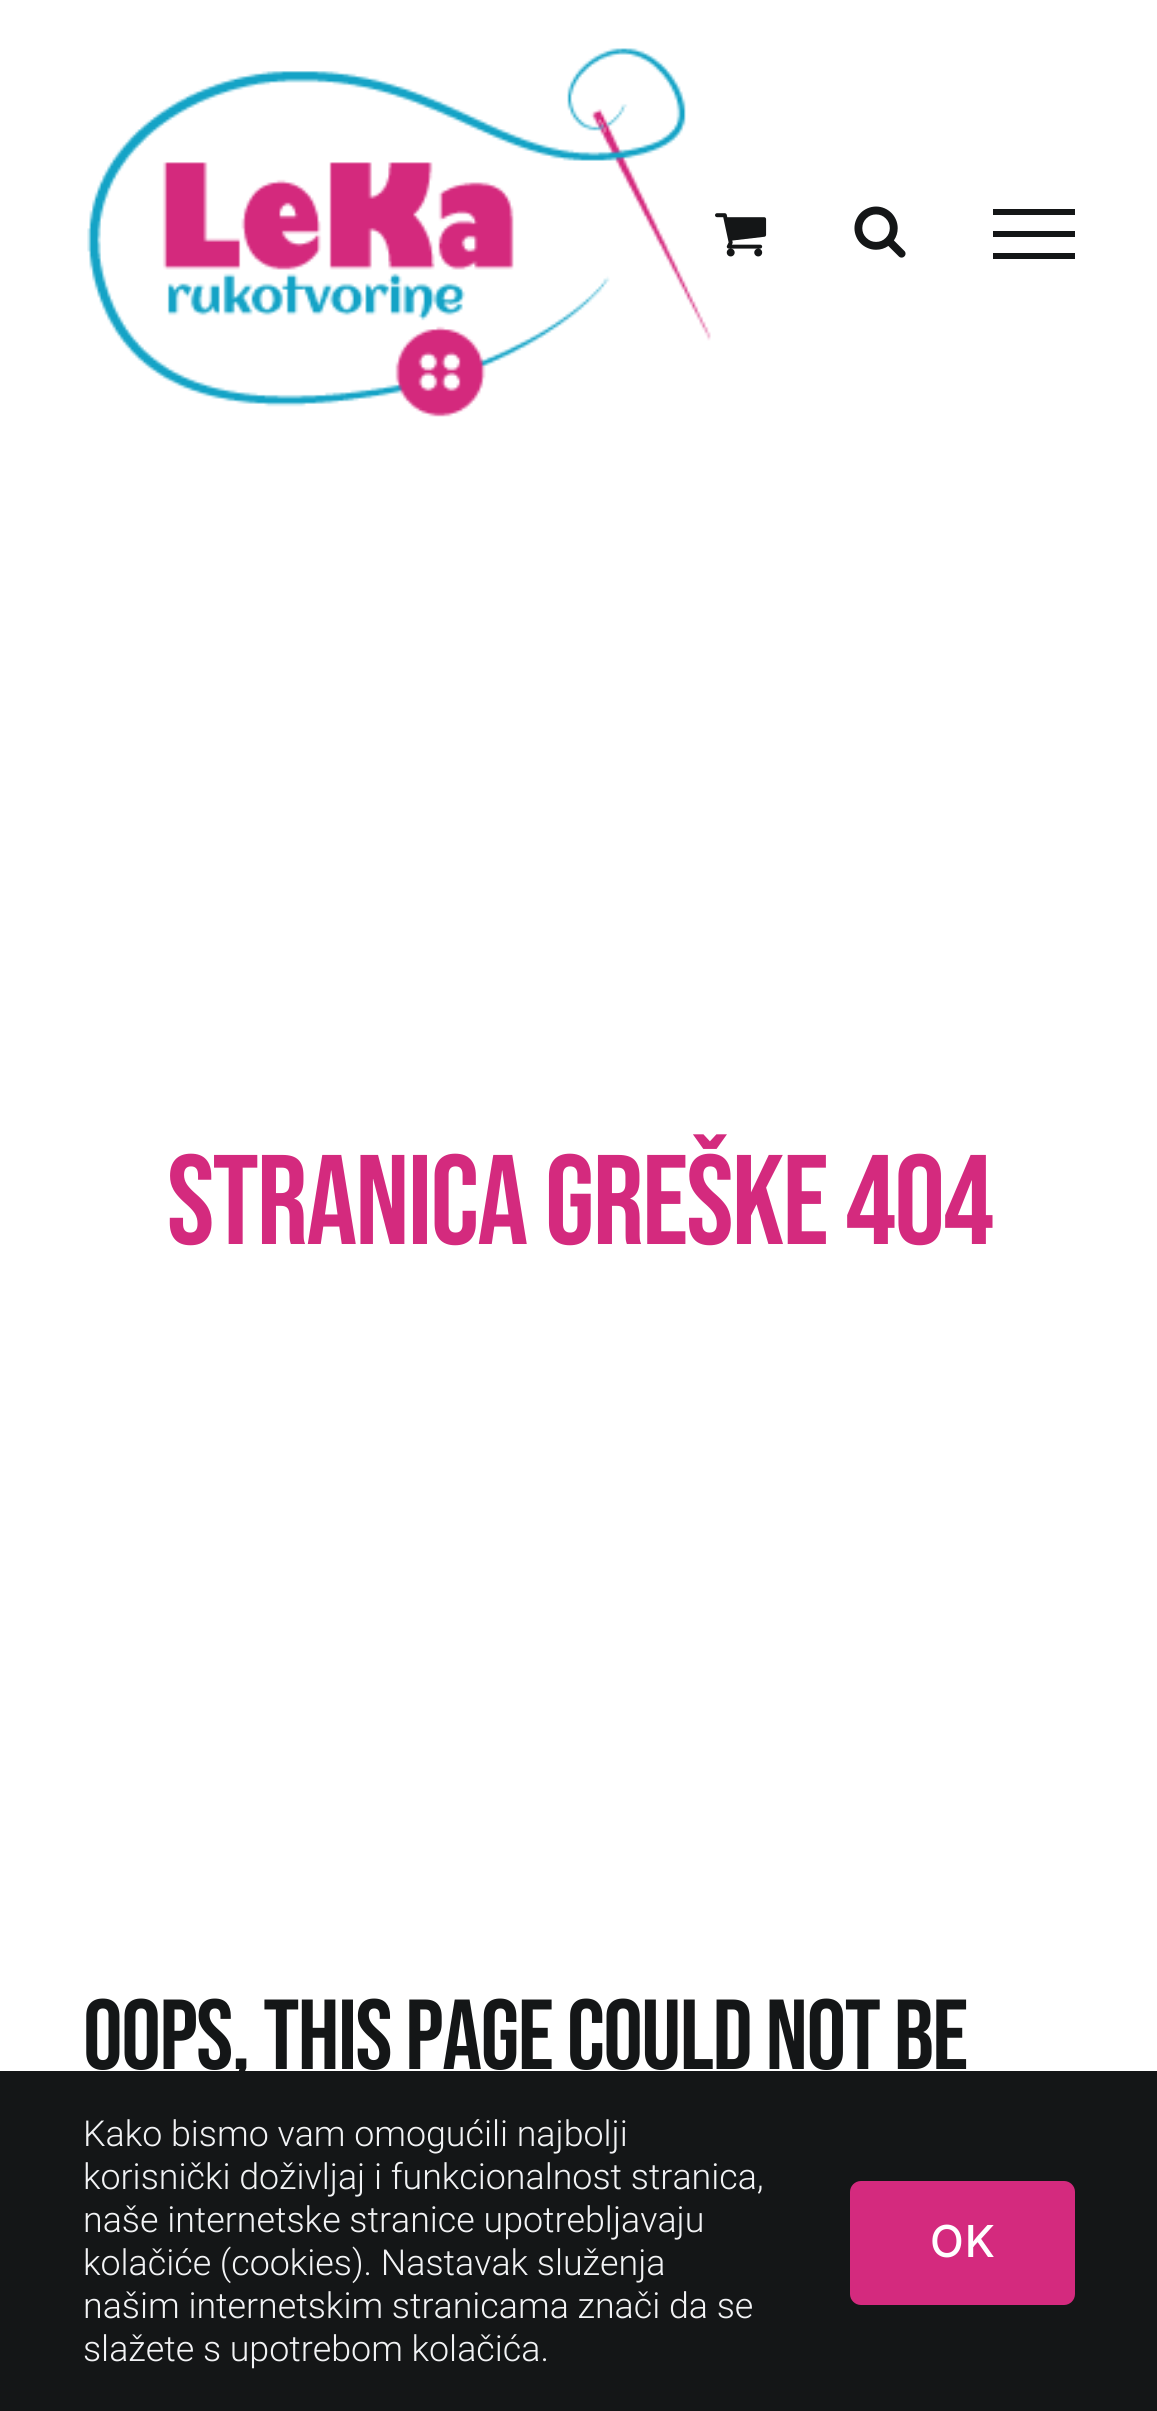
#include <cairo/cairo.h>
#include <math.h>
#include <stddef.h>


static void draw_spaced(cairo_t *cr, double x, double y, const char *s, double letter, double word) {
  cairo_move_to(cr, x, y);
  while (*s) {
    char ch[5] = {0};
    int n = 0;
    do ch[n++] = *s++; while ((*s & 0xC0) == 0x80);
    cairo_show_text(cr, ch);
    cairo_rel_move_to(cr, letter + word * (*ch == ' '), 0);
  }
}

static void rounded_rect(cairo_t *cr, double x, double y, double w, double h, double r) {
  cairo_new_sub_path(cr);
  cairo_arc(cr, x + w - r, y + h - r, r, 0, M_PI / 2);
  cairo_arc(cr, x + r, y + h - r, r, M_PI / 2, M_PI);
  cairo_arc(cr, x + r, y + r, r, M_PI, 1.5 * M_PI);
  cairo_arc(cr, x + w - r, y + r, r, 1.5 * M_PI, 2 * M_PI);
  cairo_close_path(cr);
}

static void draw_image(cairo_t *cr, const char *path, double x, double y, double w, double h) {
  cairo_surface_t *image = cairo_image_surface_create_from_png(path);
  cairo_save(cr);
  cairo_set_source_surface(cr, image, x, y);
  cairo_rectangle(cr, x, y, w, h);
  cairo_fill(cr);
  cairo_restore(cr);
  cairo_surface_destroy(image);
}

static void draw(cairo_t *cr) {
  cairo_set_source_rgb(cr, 1, 1, 1);
  cairo_paint(cr);
  draw_image(cr, "images/1.png", 87, 48, 624, 369);
  draw_image(cr, "images/2.png", 715, 213, 52, 44);
  draw_image(cr, "images/3.png", 854, 206, 52, 52);
  cairo_set_source_rgb(cr, 20 / 255.0, 22 / 255.0, 23 / 255.0);
  cairo_rectangle(cr, 993, 209, 82, 6);
  cairo_fill(cr);
  cairo_rectangle(cr, 993, 231, 82, 6);
  cairo_fill(cr);
  cairo_rectangle(cr, 993, 253, 82, 6);
  cairo_fill(cr);
  cairo_rectangle(cr, 0, 2071, 1157, 340);
  cairo_fill(cr);
  cairo_set_source_rgb(cr, 212 / 255.0, 42 / 255.0, 126 / 255.0);
  rounded_rect(cr, 850, 2181, 225, 124, 11);
  cairo_fill(cr);
  cairo_select_font_face(cr, "Bebas Neue", CAIRO_FONT_SLANT_NORMAL, CAIRO_FONT_WEIGHT_NORMAL);
  cairo_set_font_size(cr, 127.25);
  draw_spaced(cr, 167, 1244, "Stranica greške 404", -1.9, 0);
  cairo_set_font_size(cr, 99.25);
  cairo_set_source_rgb(cr, 20 / 255.0, 22 / 255.0, 23 / 255.0);
  draw_spaced(cr, 83, 2069, "Oops, This Page Could Not Be", -1.5, 0);
  cairo_select_font_face(cr, "Roboto Light", CAIRO_FONT_SLANT_NORMAL, CAIRO_FONT_WEIGHT_NORMAL);
  cairo_set_font_size(cr, 35.75);
  cairo_set_source_rgb(cr, 242 / 255.0, 243 / 255.0, 245 / 255.0);
  cairo_move_to(cr, 83, 2146);
  cairo_show_text(cr, "Kako bismo vam omogućili najbolji");
  cairo_move_to(cr, 83, 2189);
  cairo_show_text(cr, "korisnički doživljaj i funkcionalnost stranica,");
  cairo_move_to(cr, 83, 2232);
  cairo_show_text(cr, "naše internetske stranice upotrebljavaju");
  cairo_move_to(cr, 83, 2275);
  cairo_show_text(cr, "kolačiće (cookies). Nastavak služenja");
  cairo_move_to(cr, 83, 2318);
  cairo_show_text(cr, "našim internetskim stranicama znači da se");
  cairo_move_to(cr, 83, 2361);
  cairo_show_text(cr, "slažete s upotrebom kolačića.");
  cairo_select_font_face(cr, "Inter Medium", CAIRO_FONT_SLANT_NORMAL, CAIRO_FONT_WEIGHT_NORMAL);
  cairo_set_font_size(cr, 44);
  cairo_set_source_rgb(cr, 1, 1, 1);
  draw_spaced(cr, 930, 2257, "OK", 1, 0);
}

int main(void) {
  cairo_surface_t *surface = cairo_image_surface_create(CAIRO_FORMAT_RGB24, 1157, 2411);
  cairo_t *cr = cairo_create(surface);
  cairo_font_options_t *options = cairo_font_options_create();
  cairo_font_options_set_hint_metrics(options, CAIRO_HINT_METRICS_OFF);
  cairo_font_options_set_hint_style(options, CAIRO_HINT_STYLE_NONE);
  cairo_set_font_options(cr, options);
  cairo_set_miter_limit(cr, 4);
  draw(cr);
  cairo_surface_write_to_png(surface, "out.png");
  cairo_font_options_destroy(options);
  cairo_destroy(cr);
  cairo_surface_destroy(surface);
  return 0;
}
